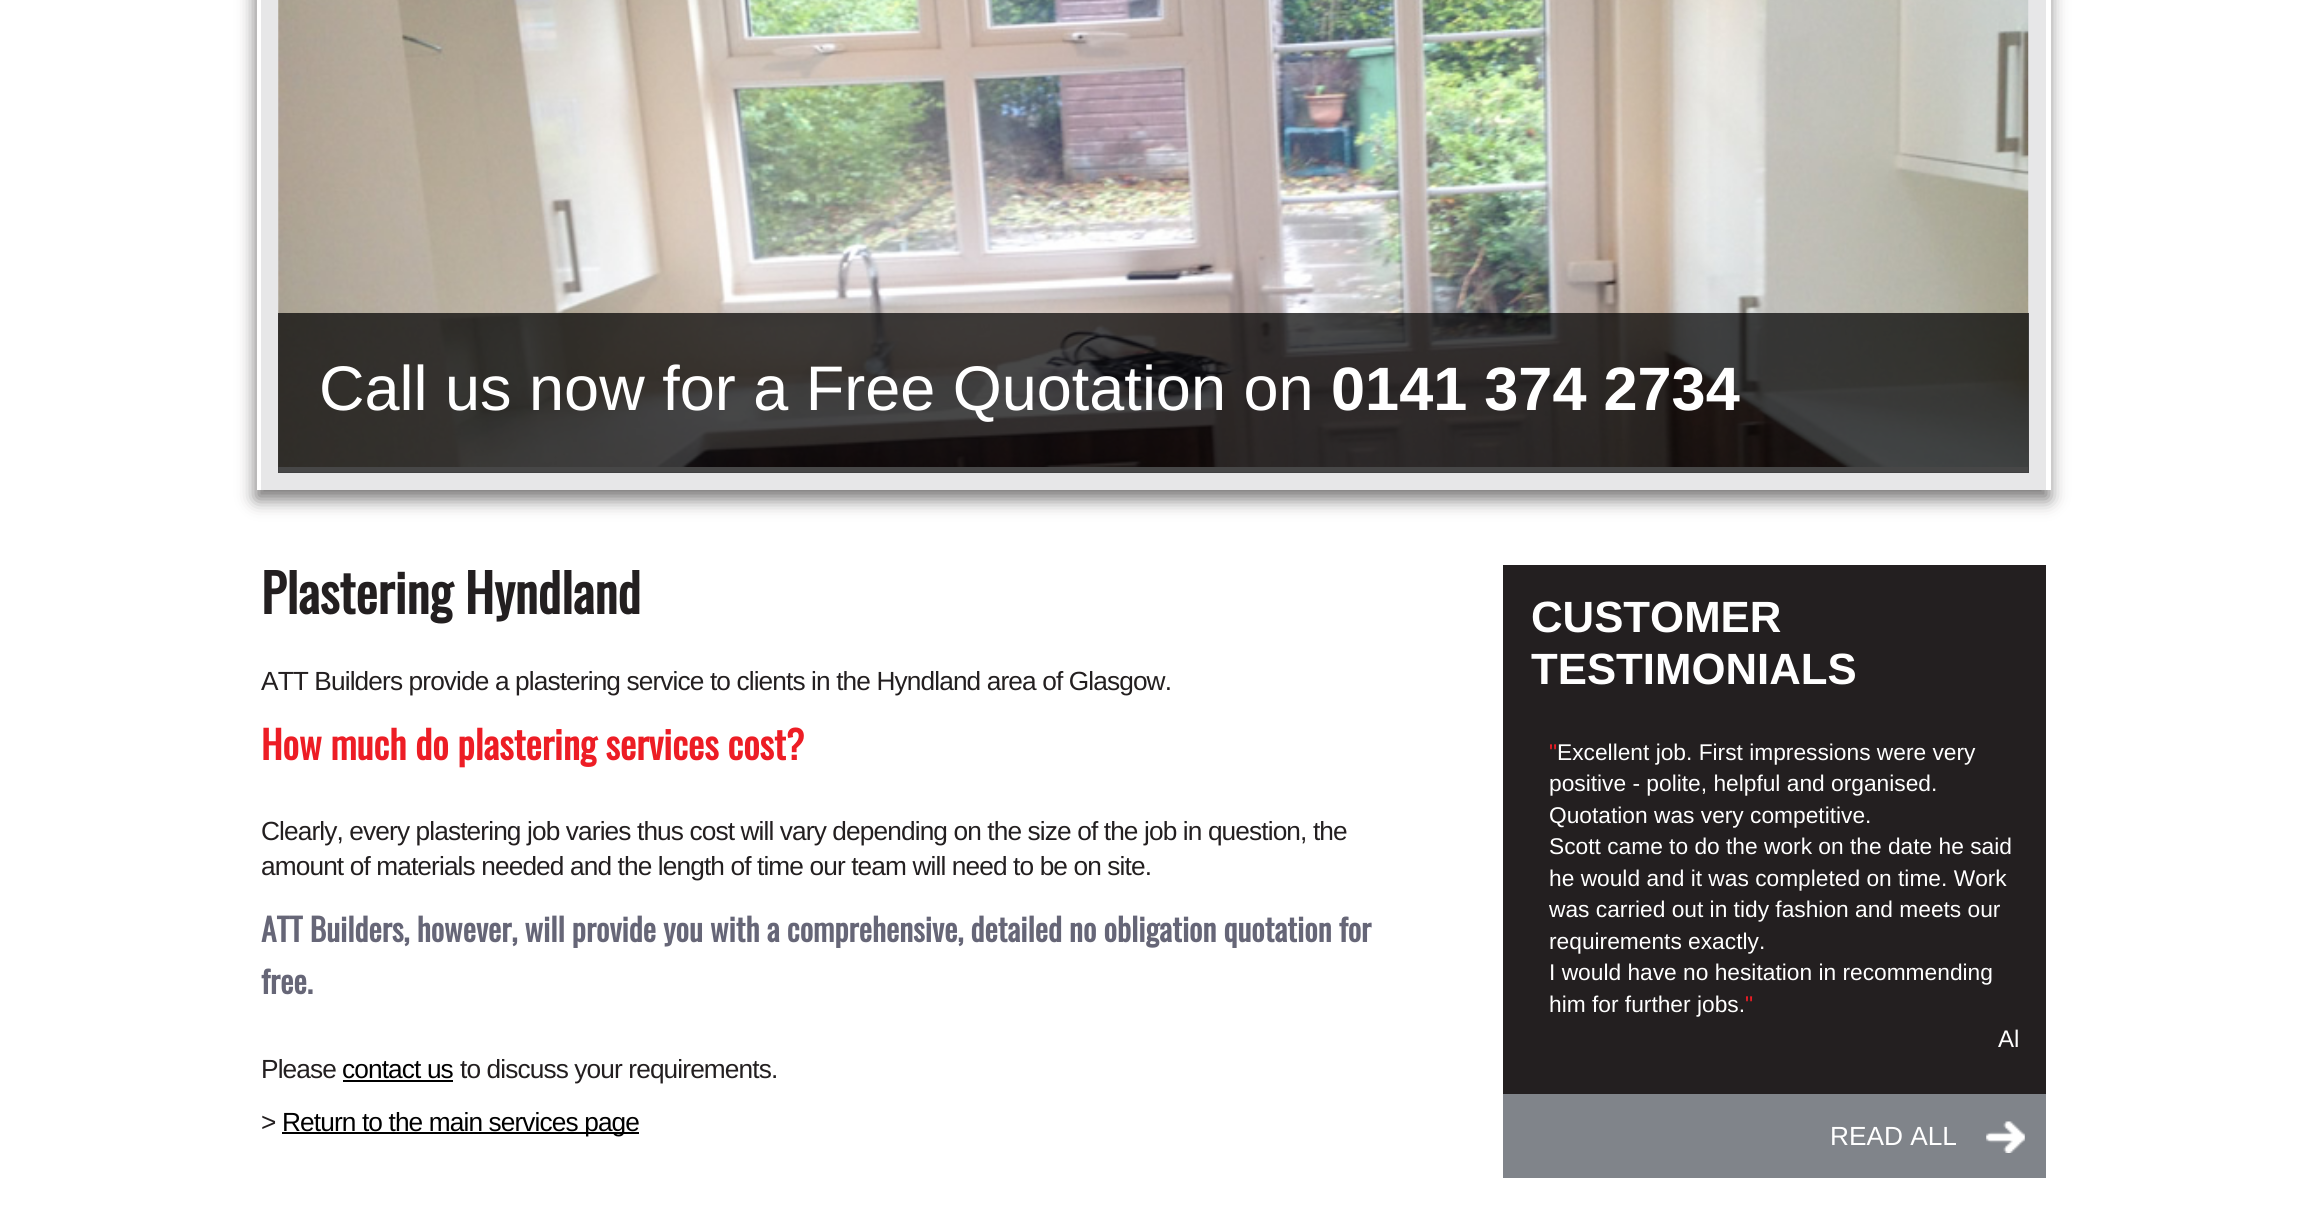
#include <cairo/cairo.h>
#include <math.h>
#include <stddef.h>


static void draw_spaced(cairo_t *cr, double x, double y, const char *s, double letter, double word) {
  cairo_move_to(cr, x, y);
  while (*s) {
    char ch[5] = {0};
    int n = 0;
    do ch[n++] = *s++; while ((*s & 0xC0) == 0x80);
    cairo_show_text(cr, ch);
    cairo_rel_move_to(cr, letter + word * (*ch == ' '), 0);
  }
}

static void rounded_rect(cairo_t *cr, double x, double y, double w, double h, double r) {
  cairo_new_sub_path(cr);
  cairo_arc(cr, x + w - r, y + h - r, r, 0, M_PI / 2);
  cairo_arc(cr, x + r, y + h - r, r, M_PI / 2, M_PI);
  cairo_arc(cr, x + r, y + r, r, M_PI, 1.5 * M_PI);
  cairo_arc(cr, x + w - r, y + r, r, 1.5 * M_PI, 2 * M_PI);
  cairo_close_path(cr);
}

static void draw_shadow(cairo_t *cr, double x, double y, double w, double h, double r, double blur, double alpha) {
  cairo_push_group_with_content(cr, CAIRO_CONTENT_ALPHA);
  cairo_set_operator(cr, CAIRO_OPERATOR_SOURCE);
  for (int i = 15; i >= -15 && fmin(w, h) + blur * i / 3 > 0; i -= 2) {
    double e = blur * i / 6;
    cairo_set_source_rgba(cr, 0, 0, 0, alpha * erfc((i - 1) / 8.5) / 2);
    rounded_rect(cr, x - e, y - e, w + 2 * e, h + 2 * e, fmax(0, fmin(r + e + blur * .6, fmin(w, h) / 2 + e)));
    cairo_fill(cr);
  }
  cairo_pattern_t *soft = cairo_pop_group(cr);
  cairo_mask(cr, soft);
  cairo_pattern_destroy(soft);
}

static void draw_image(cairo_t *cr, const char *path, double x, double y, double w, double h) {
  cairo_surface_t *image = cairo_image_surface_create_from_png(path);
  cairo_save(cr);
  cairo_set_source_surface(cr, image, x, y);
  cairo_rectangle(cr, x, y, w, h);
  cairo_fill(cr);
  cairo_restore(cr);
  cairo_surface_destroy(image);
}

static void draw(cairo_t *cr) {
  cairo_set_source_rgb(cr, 1, 1, 1);
  cairo_paint(cr);
  cairo_save(cr);
  cairo_set_fill_rule(cr, CAIRO_FILL_RULE_EVEN_ODD);
  cairo_new_path(cr);
  cairo_move_to(cr, 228, 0);
  cairo_line_to(cr, 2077, 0);
  cairo_line_to(cr, 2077, 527);
  cairo_line_to(cr, 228, 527);
  cairo_close_path(cr);
  cairo_move_to(cr, 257, -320);
  cairo_line_to(cr, 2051, -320);
  cairo_line_to(cr, 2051, 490);
  cairo_line_to(cr, 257, 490);
  cairo_close_path(cr);
  cairo_clip(cr);
  cairo_set_source_rgb(cr, 117 / 255.0, 115 / 255.0, 115 / 255.0);
  draw_shadow(cr, 256, -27, 1793, 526, 0, 9, 1);
  cairo_restore(cr);
  cairo_rectangle(cr, 270, -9, 1767, 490);
  cairo_set_source_rgb(cr, 231 / 255.0, 231 / 255.0, 232 / 255.0);
  cairo_set_line_width(cr, 18);
  cairo_stroke(cr);
  draw_image(cr, "images/1.png", 278, 0, 1751, 467);
  cairo_set_source_rgba(cr, 0, 0, 0, 0.72);
  cairo_rectangle(cr, 278, 313, 1751, 160);
  cairo_fill(cr);
  cairo_set_source_rgb(cr, 0, 0, 0);
  cairo_rectangle(cr, 343, 1080, 110, 2);
  cairo_fill(cr);
  cairo_rectangle(cr, 282, 1132, 357, 2);
  cairo_fill(cr);
  cairo_set_source_rgb(cr, 35 / 255.0, 31 / 255.0, 32 / 255.0);
  cairo_rectangle(cr, 1503, 565, 543, 529);
  cairo_fill(cr);
  cairo_set_source_rgb(cr, 128 / 255.0, 132 / 255.0, 138 / 255.0);
  cairo_rectangle(cr, 1503, 1094, 543, 84);
  cairo_fill(cr);
  draw_image(cr, "images/2.png", 1986, 1121, 39, 32);
  cairo_select_font_face(cr, "Liberation Sans", CAIRO_FONT_SLANT_NORMAL, CAIRO_FONT_WEIGHT_NORMAL);
  cairo_set_font_size(cr, 63);
  cairo_set_source_rgb(cr, 1, 1, 1);
  cairo_move_to(cr, 319, 410);
  cairo_show_text(cr, "Call us now for a Free Quotation on");
  cairo_select_font_face(cr, "Liberation Sans", CAIRO_FONT_SLANT_NORMAL, CAIRO_FONT_WEIGHT_BOLD);
  cairo_set_font_size(cr, 61.25);
  cairo_move_to(cr, 1331, 410);
  cairo_show_text(cr, "0141 374 2734");
  cairo_select_font_face(cr, "Oswald", CAIRO_FONT_SLANT_NORMAL, CAIRO_FONT_WEIGHT_BOLD);
  cairo_set_font_size(cr, 52.5);
  cairo_set_source_rgb(cr, 35 / 255.0, 31 / 255.0, 32 / 255.0);
  cairo_move_to(cr, 261, 614);
  cairo_show_text(cr, "Plastering Hyndland");
  cairo_select_font_face(cr, "Liberation Sans", CAIRO_FONT_SLANT_NORMAL, CAIRO_FONT_WEIGHT_NORMAL);
  cairo_set_font_size(cr, 26.25);
  draw_spaced(cr, 261, 690, "ATT Builders provide a plastering service to clients in the Hyndland area of Glasgow.", -0.88, 0);
  cairo_select_font_face(cr, "Oswald", CAIRO_FONT_SLANT_NORMAL, CAIRO_FONT_WEIGHT_BOLD);
  cairo_set_font_size(cr, 38.5);
  cairo_set_source_rgb(cr, 237 / 255.0, 29 / 255.0, 37 / 255.0);
  cairo_move_to(cr, 261, 760);
  cairo_show_text(cr, "How much do plastering services cost?");
  cairo_select_font_face(cr, "Liberation Sans", CAIRO_FONT_SLANT_NORMAL, CAIRO_FONT_WEIGHT_NORMAL);
  cairo_set_font_size(cr, 26.25);
  cairo_set_source_rgb(cr, 35 / 255.0, 31 / 255.0, 32 / 255.0);
  draw_spaced(cr, 261, 840, "Clearly, every plastering job varies thus cost will vary depending on the size of the job in question, the", -0.88, 0);
  draw_spaced(cr, 261, 875, "amount of materials needed and the length of time our team will need to be on site.", -0.88, 0);
  cairo_select_font_face(cr, "Oswald", CAIRO_FONT_SLANT_NORMAL, CAIRO_FONT_WEIGHT_BOLD);
  cairo_set_font_size(cr, 31.5);
  cairo_set_source_rgb(cr, 102 / 255.0, 102 / 255.0, 119 / 255.0);
  cairo_move_to(cr, 261, 942);
  cairo_show_text(cr, "ATT Builders, however, will provide you with a comprehensive, detailed no obligation quotation for");
  cairo_move_to(cr, 261, 994);
  cairo_show_text(cr, "free.");
  cairo_select_font_face(cr, "Liberation Sans", CAIRO_FONT_SLANT_NORMAL, CAIRO_FONT_WEIGHT_NORMAL);
  cairo_set_font_size(cr, 26.25);
  cairo_set_source_rgb(cr, 35 / 255.0, 31 / 255.0, 32 / 255.0);
  draw_spaced(cr, 261, 1078, "Please", -0.88, 0);
  cairo_set_source_rgb(cr, 0, 0, 0);
  draw_spaced(cr, 342, 1078, "contact us", -0.88, 0);
  cairo_set_source_rgb(cr, 35 / 255.0, 31 / 255.0, 32 / 255.0);
  draw_spaced(cr, 460, 1078, "to discuss your requirements.", -0.88, 0);
  draw_spaced(cr, 261, 1131, ">", -0.88, 0);
  cairo_set_source_rgb(cr, 0, 0, 0);
  draw_spaced(cr, 282, 1131, "Return to the main services page", -0.88, 0);
  cairo_select_font_face(cr, "Liberation Sans", CAIRO_FONT_SLANT_NORMAL, CAIRO_FONT_WEIGHT_BOLD);
  cairo_set_font_size(cr, 43.75);
  cairo_set_source_rgb(cr, 1, 1, 1);
  cairo_move_to(cr, 1531, 632);
  cairo_show_text(cr, "CUSTOMER");
  cairo_move_to(cr, 1531, 684);
  cairo_show_text(cr, "TESTIMONIALS");
  cairo_select_font_face(cr, "Liberation Sans", CAIRO_FONT_SLANT_NORMAL, CAIRO_FONT_WEIGHT_NORMAL);
  cairo_set_font_size(cr, 22.75);
  cairo_set_source_rgb(cr, 237 / 255.0, 29 / 255.0, 37 / 255.0);
  cairo_move_to(cr, 1549, 760);
  cairo_show_text(cr, "\"");
  cairo_set_source_rgb(cr, 1, 1, 1);
  cairo_move_to(cr, 1557, 760);
  cairo_show_text(cr, "Excellent job. First impressions were very");
  cairo_move_to(cr, 1549, 791);
  cairo_show_text(cr, "positive - polite, helpful and organised.");
  cairo_move_to(cr, 1549, 823);
  cairo_show_text(cr, "Quotation was very competitive.");
  cairo_move_to(cr, 1549, 854);
  cairo_show_text(cr, "Scott came to do the work on the date he said");
  cairo_move_to(cr, 1549, 886);
  cairo_show_text(cr, "he would and it was completed on time. Work");
  cairo_move_to(cr, 1549, 917);
  cairo_show_text(cr, "was carried out in tidy fashion and meets our");
  cairo_move_to(cr, 1549, 949);
  cairo_show_text(cr, "requirements exactly.");
  cairo_move_to(cr, 1549, 980);
  cairo_show_text(cr, "I would have no hesitation in recommending");
  cairo_move_to(cr, 1549, 1012);
  cairo_show_text(cr, "him for further jobs.");
  cairo_set_source_rgb(cr, 237 / 255.0, 29 / 255.0, 37 / 255.0);
  cairo_move_to(cr, 1745, 1012);
  cairo_show_text(cr, "\"");
  cairo_set_font_size(cr, 24);
  cairo_set_source_rgb(cr, 1, 1, 1);
  cairo_move_to(cr, 1998, 1047);
  cairo_show_text(cr, "Al");
  cairo_set_font_size(cr, 26.25);
  cairo_move_to(cr, 1830, 1145);
  cairo_show_text(cr, "READ ALL");
}

int main(void) {
  cairo_surface_t *surface = cairo_image_surface_create(CAIRO_FORMAT_RGB24, 2305, 1210);
  cairo_t *cr = cairo_create(surface);
  cairo_font_options_t *options = cairo_font_options_create();
  cairo_font_options_set_hint_metrics(options, CAIRO_HINT_METRICS_OFF);
  cairo_font_options_set_hint_style(options, CAIRO_HINT_STYLE_NONE);
  cairo_set_font_options(cr, options);
  cairo_set_miter_limit(cr, 4);
  draw(cr);
  cairo_surface_write_to_png(surface, "out.png");
  cairo_font_options_destroy(options);
  cairo_destroy(cr);
  cairo_surface_destroy(surface);
  return 0;
}
